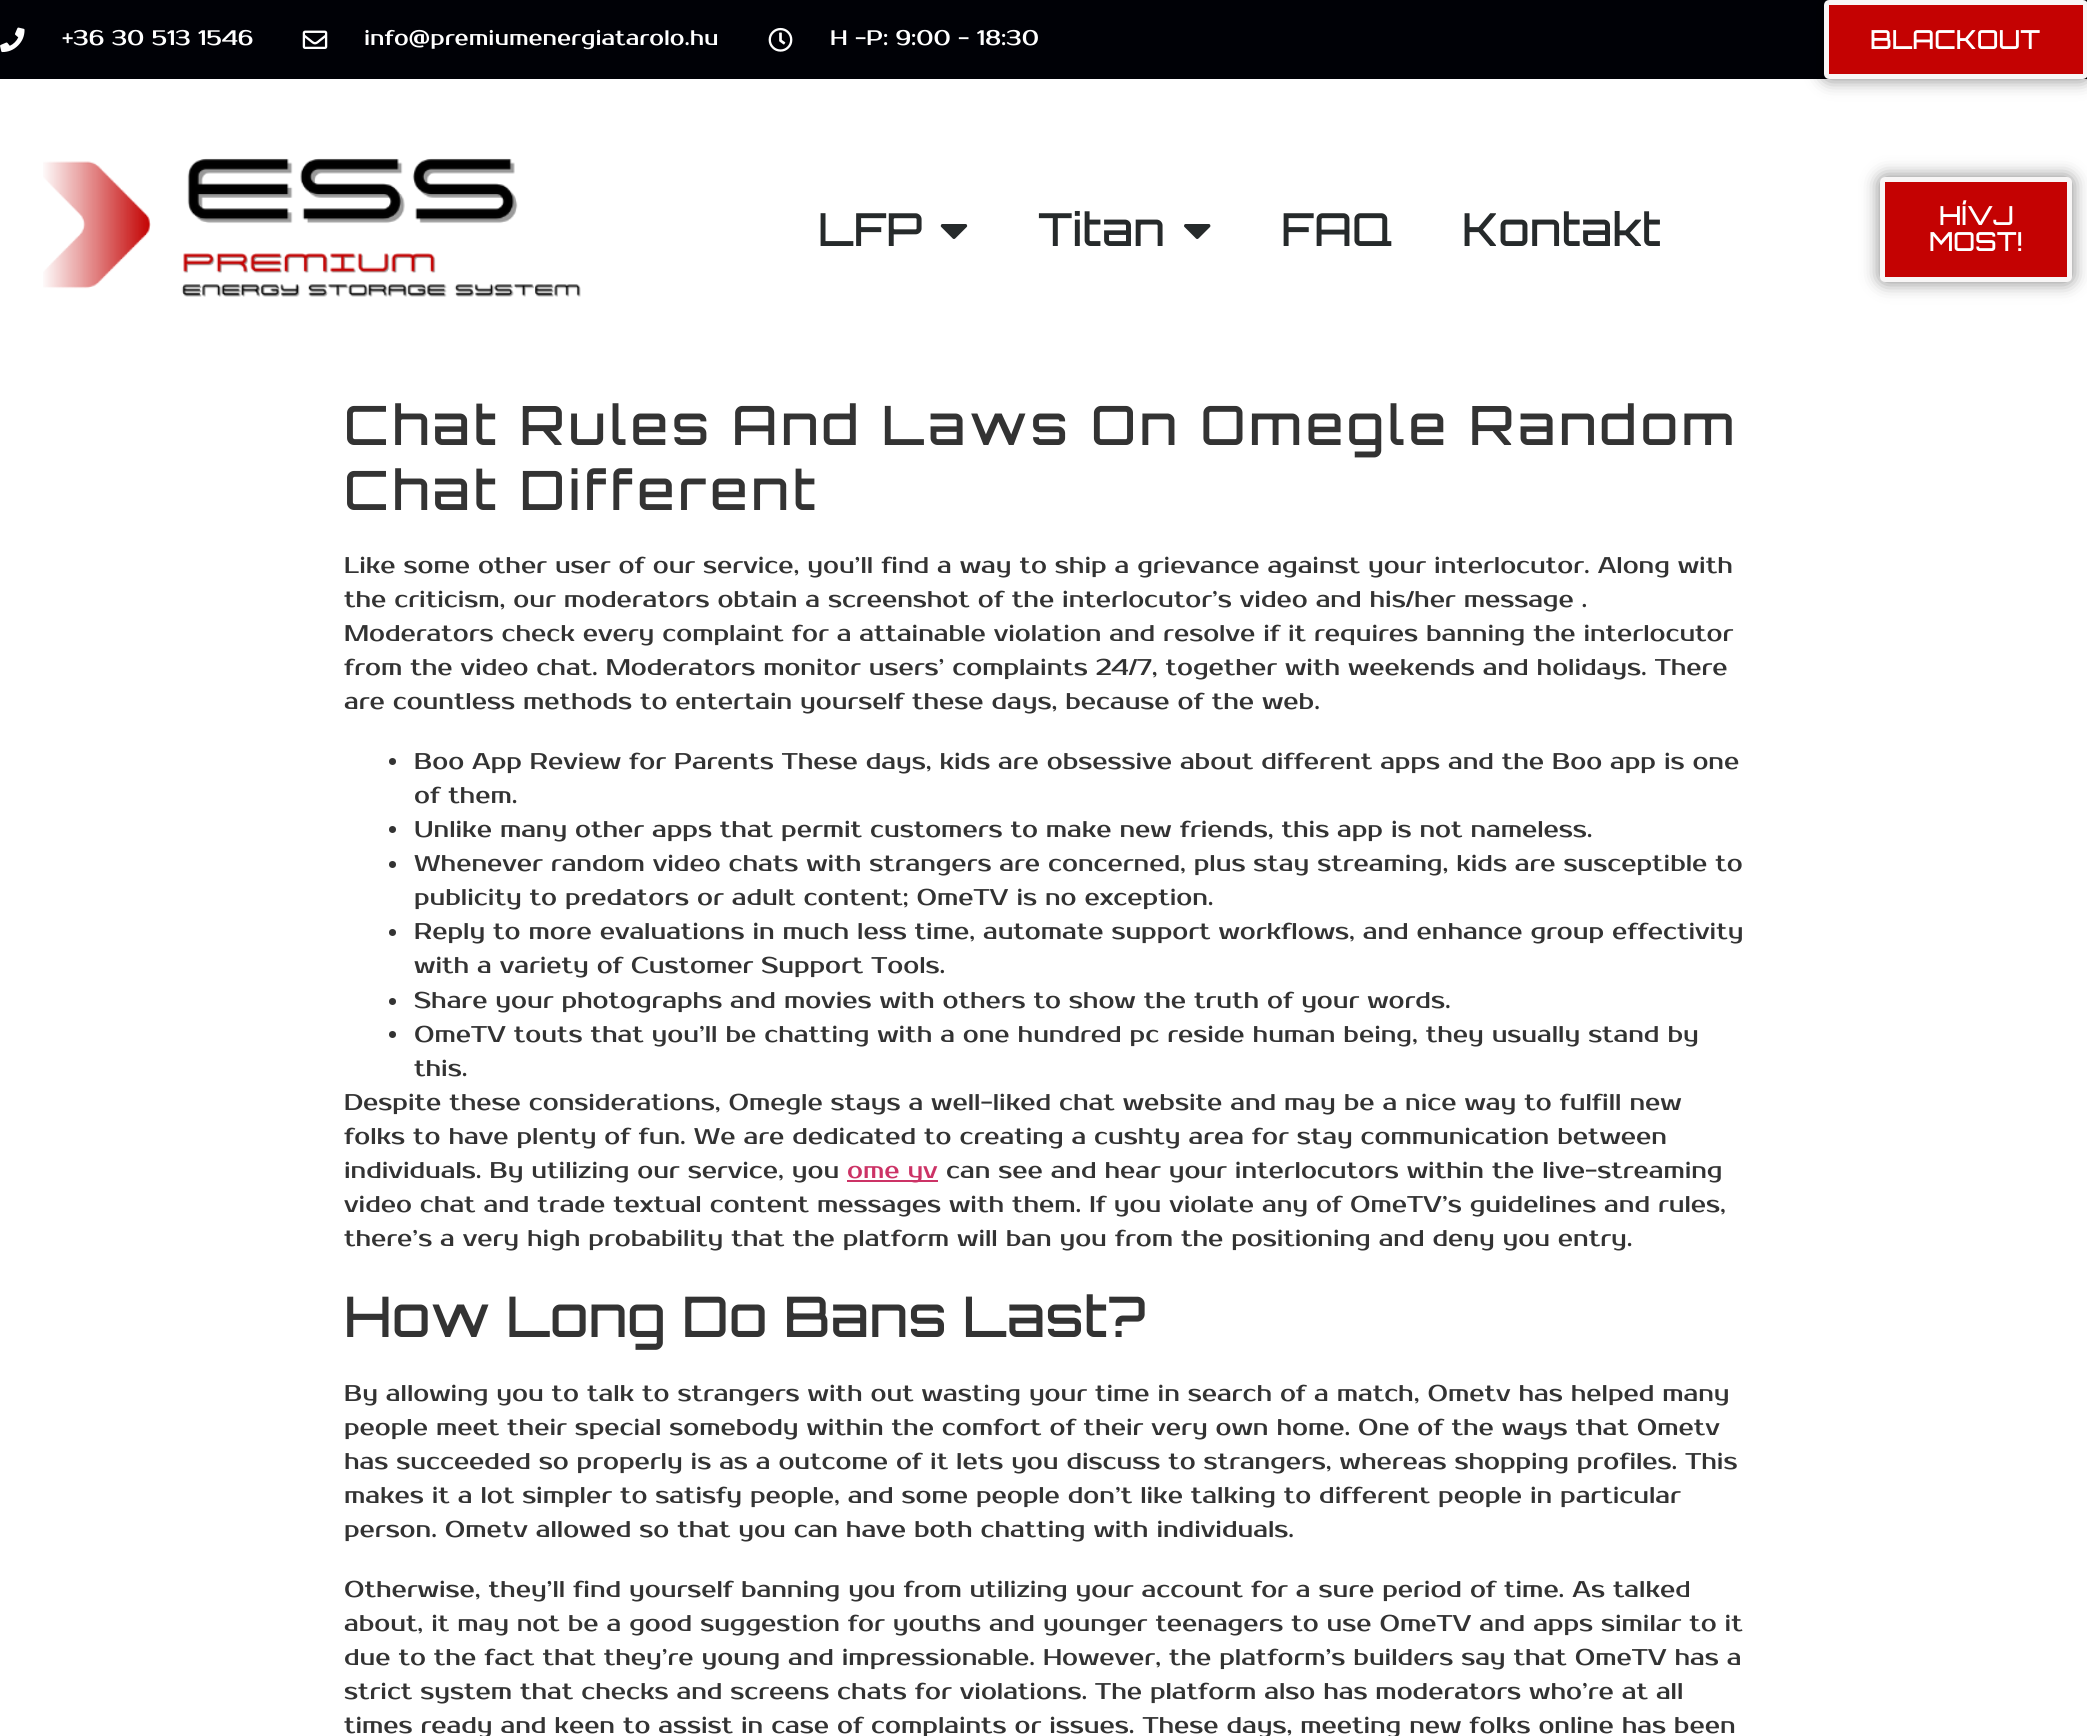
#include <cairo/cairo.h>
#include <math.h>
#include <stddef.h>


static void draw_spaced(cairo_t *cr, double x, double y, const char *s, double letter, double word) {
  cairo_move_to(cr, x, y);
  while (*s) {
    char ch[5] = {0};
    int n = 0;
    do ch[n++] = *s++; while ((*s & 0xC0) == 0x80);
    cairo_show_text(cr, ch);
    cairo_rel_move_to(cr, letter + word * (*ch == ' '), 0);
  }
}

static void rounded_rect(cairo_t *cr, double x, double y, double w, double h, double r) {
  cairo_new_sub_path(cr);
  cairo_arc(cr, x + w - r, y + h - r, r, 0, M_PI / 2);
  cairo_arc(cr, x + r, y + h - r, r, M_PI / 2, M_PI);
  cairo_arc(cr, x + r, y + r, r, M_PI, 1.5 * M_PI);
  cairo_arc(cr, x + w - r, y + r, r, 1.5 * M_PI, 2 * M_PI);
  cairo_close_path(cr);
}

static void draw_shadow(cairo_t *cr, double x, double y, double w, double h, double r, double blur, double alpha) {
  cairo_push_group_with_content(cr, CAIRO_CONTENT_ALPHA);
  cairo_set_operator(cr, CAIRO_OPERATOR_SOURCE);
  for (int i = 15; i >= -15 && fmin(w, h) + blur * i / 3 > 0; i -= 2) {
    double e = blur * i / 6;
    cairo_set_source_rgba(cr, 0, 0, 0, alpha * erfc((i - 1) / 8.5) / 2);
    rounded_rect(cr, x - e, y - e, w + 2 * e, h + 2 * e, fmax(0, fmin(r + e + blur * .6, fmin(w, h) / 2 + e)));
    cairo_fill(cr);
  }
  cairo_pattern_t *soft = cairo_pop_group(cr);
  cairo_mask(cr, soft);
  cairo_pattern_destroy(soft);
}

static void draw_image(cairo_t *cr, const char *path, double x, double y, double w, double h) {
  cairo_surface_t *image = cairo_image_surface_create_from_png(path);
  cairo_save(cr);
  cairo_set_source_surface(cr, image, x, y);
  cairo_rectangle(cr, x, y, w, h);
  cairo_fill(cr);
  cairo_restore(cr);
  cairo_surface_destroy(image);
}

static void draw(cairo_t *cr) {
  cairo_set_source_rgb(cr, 1, 1, 1);
  cairo_paint(cr);
  cairo_set_source_rgb(cr, 0, 1 / 255.0, 6 / 255.0);
  cairo_rectangle(cr, 0, 0, 2087, 79);
  cairo_fill(cr);
  draw_image(cr, "images/1.png", 0, 27, 25, 26);
  draw_image(cr, "images/2.png", 302, 30, 26, 19);
  draw_image(cr, "images/3.png", 768, 27, 25, 25);
  cairo_set_source_rgb(cr, 0, 0, 0);
  draw_shadow(cr, 1824, 0, 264, 79, 5, 9, 0.5);
  cairo_set_source_rgb(cr, 196 / 255.0, 2 / 255.0, 2 / 255.0);
  rounded_rect(cr, 1826.5, 2.5, 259, 74, 2.5);
  cairo_fill_preserve(cr);
  cairo_set_source_rgb(cr, 248 / 255.0, 246 / 255.0, 246 / 255.0);
  cairo_set_line_width(cr, 5);
  cairo_stroke(cr);
  draw_image(cr, "images/4.png", 43, 158, 538, 139);
  draw_image(cr, "images/5.png", 940, 224, 28, 15);
  draw_image(cr, "images/6.png", 1184, 224, 27, 15);
  cairo_set_source_rgb(cr, 0, 0, 0);
  draw_shadow(cr, 1880, 177, 192, 105, 5, 9, 0.5);
  cairo_set_source_rgb(cr, 196 / 255.0, 2 / 255.0, 2 / 255.0);
  rounded_rect(cr, 1882.5, 179.5, 187, 100, 2.5);
  cairo_fill_preserve(cr);
  cairo_set_source_rgb(cr, 248 / 255.0, 246 / 255.0, 246 / 255.0);
  cairo_stroke(cr);
  cairo_set_source_rgb(cr, 51 / 255.0, 51 / 255.0, 51 / 255.0);
  cairo_arc(cr, 392.5, 761.5, 3.5, 0, 2 * M_PI);
  cairo_fill(cr);
  cairo_arc(cr, 392.5, 829.5, 3.5, 0, 2 * M_PI);
  cairo_fill(cr);
  cairo_arc(cr, 392.5, 864.5, 3.5, 0, 2 * M_PI);
  cairo_fill(cr);
  cairo_arc(cr, 392.5, 932.5, 3.5, 0, 2 * M_PI);
  cairo_fill(cr);
  cairo_arc(cr, 392.5, 1001.5, 3.5, 0, 2 * M_PI);
  cairo_fill(cr);
  cairo_arc(cr, 392.5, 1034.5, 3.5, 0, 2 * M_PI);
  cairo_fill(cr);
  cairo_set_source_rgb(cr, 204 / 255.0, 51 / 255.0, 102 / 255.0);
  cairo_rectangle(cr, 847, 1180, 91, 2);
  cairo_fill(cr);
  cairo_select_font_face(cr, "Prosto One", CAIRO_FONT_SLANT_NORMAL, CAIRO_FONT_WEIGHT_NORMAL);
  cairo_set_font_size(cr, 21);
  cairo_set_source_rgb(cr, 1, 1, 1);
  cairo_move_to(cr, 62, 45);
  cairo_show_text(cr, "+36 30 513 1546");
  cairo_move_to(cr, 364, 45);
  cairo_show_text(cr, "info@premiumenergiatarolo.hu");
  cairo_move_to(cr, 830, 45);
  cairo_show_text(cr, "H -P: 9:00 - 18:30");
  cairo_select_font_face(cr, "Orbitron Medium", CAIRO_FONT_SLANT_NORMAL, CAIRO_FONT_WEIGHT_NORMAL);
  cairo_set_font_size(cr, 26.25);
  cairo_move_to(cr, 1870, 49);
  cairo_show_text(cr, "BLACKOUT");
  cairo_set_font_size(cr, 45.5);
  cairo_set_source_rgb(cr, 38 / 255.0, 42 / 255.0, 43 / 255.0);
  cairo_move_to(cr, 818, 246);
  cairo_show_text(cr, "LFP");
  cairo_move_to(cr, 1038, 246);
  cairo_show_text(cr, "Titan");
  cairo_move_to(cr, 1281, 246);
  cairo_show_text(cr, "FAQ");
  cairo_move_to(cr, 1462, 246);
  cairo_show_text(cr, "Kontakt");
  cairo_set_font_size(cr, 26.25);
  cairo_set_source_rgb(cr, 1, 1, 1);
  cairo_move_to(cr, 1939, 225);
  cairo_show_text(cr, "HÍVJ");
  cairo_move_to(cr, 1929, 251);
  cairo_show_text(cr, "MOST!");
  cairo_set_font_size(cr, 54.25);
  cairo_set_source_rgb(cr, 51 / 255.0, 51 / 255.0, 51 / 255.0);
  draw_spaced(cr, 344, 445, "Chat Rules And Laws On Omegle Random", 3.7, 0);
  draw_spaced(cr, 344, 510, "Chat Different", 3.7, 0);
  cairo_select_font_face(cr, "Prosto One", CAIRO_FONT_SLANT_NORMAL, CAIRO_FONT_WEIGHT_NORMAL);
  cairo_set_font_size(cr, 22.75);
  cairo_move_to(cr, 344, 573);
  cairo_show_text(cr, "Like some other user of our service, you’ll find a way to ship a grievance against your interlocutor. Along with");
  cairo_move_to(cr, 344, 607);
  cairo_show_text(cr, "the criticism, our moderators obtain a screenshot of the interlocutor’s video and his/her message .");
  cairo_move_to(cr, 344, 641);
  cairo_show_text(cr, "Moderators check every complaint for a attainable violation and resolve if it requires banning the interlocutor");
  cairo_move_to(cr, 344, 675);
  cairo_show_text(cr, "from the video chat. Moderators monitor users’ complaints 24/7, together with weekends and holidays. There");
  cairo_move_to(cr, 344, 709);
  cairo_show_text(cr, "are countless methods to entertain yourself these days, because of the web.");
  cairo_move_to(cr, 414, 769);
  cairo_show_text(cr, "Boo App Review for Parents These days, kids are obsessive about different apps and the Boo app is one");
  cairo_move_to(cr, 414, 803);
  cairo_show_text(cr, "of them.");
  cairo_move_to(cr, 414, 837);
  cairo_show_text(cr, "Unlike many other apps that permit customers to make new friends, this app is not nameless.");
  cairo_move_to(cr, 414, 871);
  cairo_show_text(cr, "Whenever random video chats with strangers are concerned, plus stay streaming, kids are susceptible to");
  cairo_move_to(cr, 414, 905);
  cairo_show_text(cr, "publicity to predators or adult content; OmeTV is no exception.");
  cairo_move_to(cr, 414, 939);
  cairo_show_text(cr, "Reply to more evaluations in much less time, automate support workflows, and enhance group effectivity");
  cairo_move_to(cr, 414, 973);
  cairo_show_text(cr, "with a variety of Customer Support Tools.");
  cairo_move_to(cr, 414, 1008);
  cairo_show_text(cr, "Share your photographs and movies with others to show the truth of your words.");
  cairo_move_to(cr, 414, 1042);
  cairo_show_text(cr, "OmeTV touts that you’ll be chatting with a one hundred pc reside human being, they usually stand by");
  cairo_move_to(cr, 414, 1076);
  cairo_show_text(cr, "this.");
  cairo_move_to(cr, 344, 1110);
  cairo_show_text(cr, "Despite these considerations, Omegle stays a well-liked chat website and may be a nice way to fulfill new");
  cairo_move_to(cr, 344, 1144);
  cairo_show_text(cr, "folks to have plenty of fun. We are dedicated to creating a cushty area for stay communication between");
  cairo_move_to(cr, 344, 1178);
  cairo_show_text(cr, "individuals. By utilizing our service, you");
  cairo_set_source_rgb(cr, 204 / 255.0, 51 / 255.0, 102 / 255.0);
  cairo_move_to(cr, 847, 1178);
  cairo_show_text(cr, "ome yv");
  cairo_set_source_rgb(cr, 51 / 255.0, 51 / 255.0, 51 / 255.0);
  cairo_move_to(cr, 946, 1178);
  cairo_show_text(cr, "can see and hear your interlocutors within the live-streaming");
  cairo_move_to(cr, 344, 1212);
  cairo_show_text(cr, "video chat and trade textual content messages with them. If you violate any of OmeTV’s guidelines and rules,");
  cairo_move_to(cr, 344, 1246);
  cairo_show_text(cr, "there’s a very high probability that the platform will ban you from the positioning and deny you entry.");
  cairo_select_font_face(cr, "Orbitron Medium", CAIRO_FONT_SLANT_NORMAL, CAIRO_FONT_WEIGHT_NORMAL);
  cairo_set_font_size(cr, 56);
  cairo_move_to(cr, 344, 1337);
  cairo_show_text(cr, "How Long Do Bans Last?");
  cairo_select_font_face(cr, "Prosto One", CAIRO_FONT_SLANT_NORMAL, CAIRO_FONT_WEIGHT_NORMAL);
  cairo_set_font_size(cr, 22.75);
  cairo_move_to(cr, 344, 1401);
  cairo_show_text(cr, "By allowing you to talk to strangers with out wasting your time in search of a match, Ometv has helped many");
  cairo_move_to(cr, 344, 1435);
  cairo_show_text(cr, "people meet their special somebody within the comfort of their very own home. One of the ways that Ometv");
  cairo_move_to(cr, 344, 1469);
  cairo_show_text(cr, "has succeeded so properly is as a outcome of it lets you discuss to strangers, whereas shopping profiles. This");
  cairo_move_to(cr, 344, 1503);
  cairo_show_text(cr, "makes it a lot simpler to satisfy people, and some people don’t like talking to different people in particular");
  cairo_move_to(cr, 344, 1537);
  cairo_show_text(cr, "person. Ometv allowed so that you can have both chatting with individuals.");
  cairo_move_to(cr, 344, 1597);
  cairo_show_text(cr, "Otherwise, they’ll find yourself banning you from utilizing your account for a sure period of time. As talked");
  cairo_move_to(cr, 344, 1631);
  cairo_show_text(cr, "about, it may not be a good suggestion for youths and younger teenagers to use OmeTV and apps similar to it");
  cairo_move_to(cr, 344, 1665);
  cairo_show_text(cr, "due to the fact that they’re young and impressionable. However, the platform’s builders say that OmeTV has a");
  cairo_move_to(cr, 344, 1699);
  cairo_show_text(cr, "strict system that checks and screens chats for violations. The platform also has moderators who’re at all");
  cairo_move_to(cr, 344, 1733);
  cairo_show_text(cr, "times ready and keen to assist in case of complaints or issues. These days, meeting new folks online has been");
}

int main(void) {
  cairo_surface_t *surface = cairo_image_surface_create(CAIRO_FORMAT_RGB24, 2087, 1736);
  cairo_t *cr = cairo_create(surface);
  cairo_font_options_t *options = cairo_font_options_create();
  cairo_font_options_set_hint_metrics(options, CAIRO_HINT_METRICS_OFF);
  cairo_font_options_set_hint_style(options, CAIRO_HINT_STYLE_NONE);
  cairo_set_font_options(cr, options);
  cairo_set_miter_limit(cr, 4);
  draw(cr);
  cairo_surface_write_to_png(surface, "out.png");
  cairo_font_options_destroy(options);
  cairo_destroy(cr);
  cairo_surface_destroy(surface);
  return 0;
}
